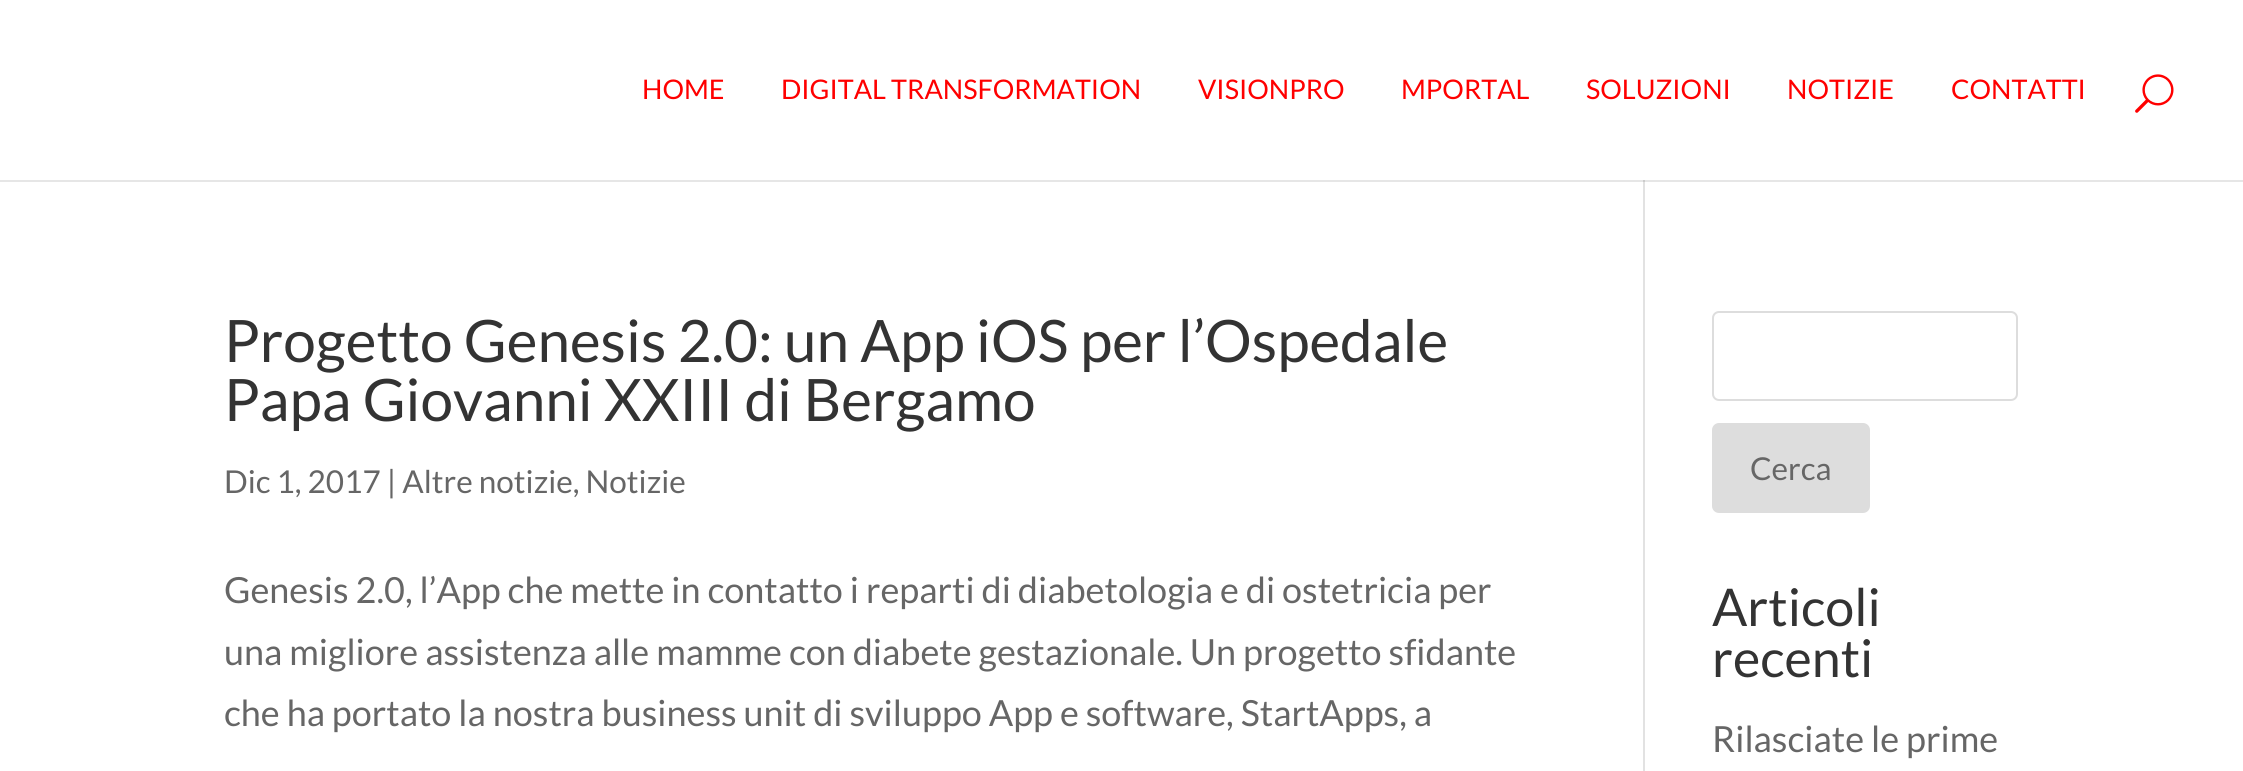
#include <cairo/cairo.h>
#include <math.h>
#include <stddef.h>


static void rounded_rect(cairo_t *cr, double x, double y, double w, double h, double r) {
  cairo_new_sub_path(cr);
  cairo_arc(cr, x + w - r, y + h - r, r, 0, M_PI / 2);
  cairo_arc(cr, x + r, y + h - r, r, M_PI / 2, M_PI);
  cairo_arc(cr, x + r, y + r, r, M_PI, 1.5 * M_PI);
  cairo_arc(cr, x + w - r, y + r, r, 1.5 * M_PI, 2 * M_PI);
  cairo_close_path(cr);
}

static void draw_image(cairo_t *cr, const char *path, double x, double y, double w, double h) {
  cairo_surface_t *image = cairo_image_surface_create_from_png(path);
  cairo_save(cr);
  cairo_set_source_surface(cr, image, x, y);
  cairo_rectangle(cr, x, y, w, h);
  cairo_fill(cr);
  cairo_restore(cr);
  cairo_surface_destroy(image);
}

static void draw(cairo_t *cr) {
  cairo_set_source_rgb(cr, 1, 1, 1);
  cairo_paint(cr);
  draw_image(cr, "images/1.png", 2135, 74, 39, 39);
  cairo_set_source_rgb(cr, 230 / 255.0, 230 / 255.0, 230 / 255.0);
  cairo_rectangle(cr, 0, 180, 2243, 2);
  cairo_fill(cr);
  cairo_set_source_rgb(cr, 226 / 255.0, 226 / 255.0, 226 / 255.0);
  cairo_rectangle(cr, 1643, 180, 2, 591);
  cairo_fill(cr);
  cairo_set_source_rgb(cr, 203 / 255.0, 203 / 255.0, 203 / 255.0);
  cairo_rectangle(cr, 1643, 180, 2, 2);
  cairo_fill(cr);
  rounded_rect(cr, 1713, 312, 304, 88, 6);
  cairo_set_source_rgb(cr, 221 / 255.0, 221 / 255.0, 221 / 255.0);
  cairo_stroke(cr);
  rounded_rect(cr, 1713, 424, 156, 88, 6);
  cairo_fill_preserve(cr);
  cairo_stroke(cr);
  cairo_select_font_face(cr, "Lato", CAIRO_FONT_SLANT_NORMAL, CAIRO_FONT_WEIGHT_NORMAL);
  cairo_set_font_size(cr, 27);
  cairo_set_source_rgb(cr, 1, 0, 0);
  cairo_move_to(cr, 642, 99);
  cairo_show_text(cr, "HOME");
  cairo_move_to(cr, 781, 99);
  cairo_show_text(cr, "DIGITAL TRANSFORMATION");
  cairo_move_to(cr, 1198, 99);
  cairo_show_text(cr, "VISIONPRO");
  cairo_move_to(cr, 1401, 99);
  cairo_show_text(cr, "MPORTAL");
  cairo_move_to(cr, 1586, 99);
  cairo_show_text(cr, "SOLUZIONI");
  cairo_move_to(cr, 1787, 99);
  cairo_show_text(cr, "NOTIZIE");
  cairo_move_to(cr, 1951, 99);
  cairo_show_text(cr, "CONTATTI");
  cairo_set_font_size(cr, 58.5);
  cairo_set_source_rgb(cr, 51 / 255.0, 51 / 255.0, 51 / 255.0);
  cairo_move_to(cr, 224, 362);
  cairo_show_text(cr, "Progetto Genesis 2.0: un App iOS per l’Ospedale");
  cairo_move_to(cr, 224, 421);
  cairo_show_text(cr, "Papa Giovanni XXIII di Bergamo");
  cairo_set_font_size(cr, 31.5);
  cairo_set_source_rgb(cr, 102 / 255.0, 102 / 255.0, 102 / 255.0);
  cairo_move_to(cr, 224, 493);
  cairo_show_text(cr, "Dic 1, 2017 | Altre notizie, Notizie");
  cairo_set_font_size(cr, 36);
  cairo_move_to(cr, 224, 603);
  cairo_show_text(cr, "Genesis 2.0, l’App che mette in contatto i reparti di diabetologia e di ostetricia per");
  cairo_move_to(cr, 224, 665);
  cairo_show_text(cr, "una migliore assistenza alle mamme con diabete gestazionale. Un progetto sfidante");
  cairo_move_to(cr, 224, 726);
  cairo_show_text(cr, "che ha portato la nostra business unit di sviluppo App e software, StartApps, a");
  cairo_set_font_size(cr, 31.5);
  cairo_move_to(cr, 1750, 480);
  cairo_show_text(cr, "Cerca");
  cairo_set_font_size(cr, 52);
  cairo_set_source_rgb(cr, 51 / 255.0, 51 / 255.0, 51 / 255.0);
  cairo_move_to(cr, 1712, 626);
  cairo_show_text(cr, "Articoli");
  cairo_move_to(cr, 1712, 677);
  cairo_show_text(cr, "recenti");
  cairo_set_font_size(cr, 36);
  cairo_set_source_rgb(cr, 102 / 255.0, 102 / 255.0, 102 / 255.0);
  cairo_move_to(cr, 1712, 752);
  cairo_show_text(cr, "Rilasciate le prime");
}

int main(void) {
  cairo_surface_t *surface = cairo_image_surface_create(CAIRO_FORMAT_RGB24, 2243, 771);
  cairo_t *cr = cairo_create(surface);
  cairo_font_options_t *options = cairo_font_options_create();
  cairo_font_options_set_hint_metrics(options, CAIRO_HINT_METRICS_OFF);
  cairo_font_options_set_hint_style(options, CAIRO_HINT_STYLE_NONE);
  cairo_set_font_options(cr, options);
  cairo_set_miter_limit(cr, 4);
  draw(cr);
  cairo_surface_write_to_png(surface, "out.png");
  cairo_font_options_destroy(options);
  cairo_destroy(cr);
  cairo_surface_destroy(surface);
  return 0;
}
